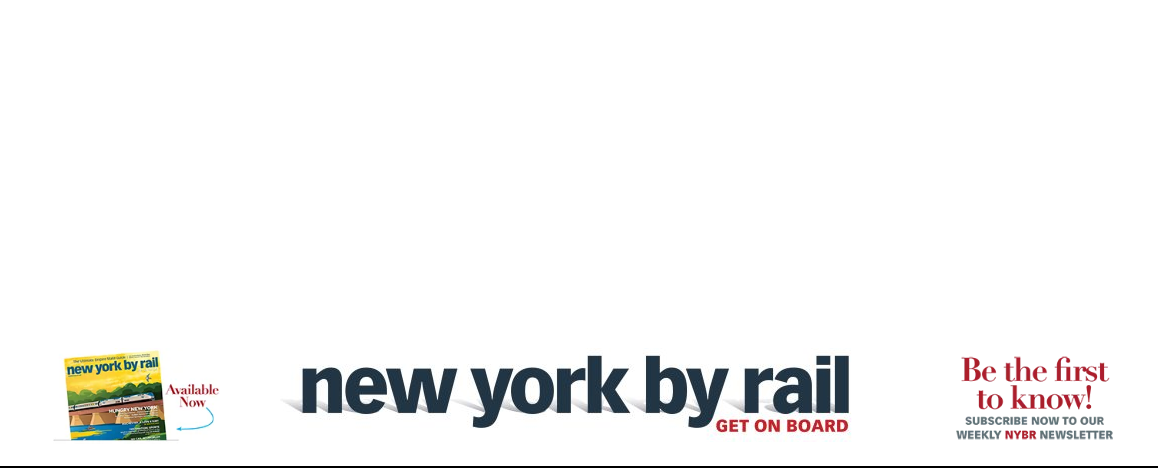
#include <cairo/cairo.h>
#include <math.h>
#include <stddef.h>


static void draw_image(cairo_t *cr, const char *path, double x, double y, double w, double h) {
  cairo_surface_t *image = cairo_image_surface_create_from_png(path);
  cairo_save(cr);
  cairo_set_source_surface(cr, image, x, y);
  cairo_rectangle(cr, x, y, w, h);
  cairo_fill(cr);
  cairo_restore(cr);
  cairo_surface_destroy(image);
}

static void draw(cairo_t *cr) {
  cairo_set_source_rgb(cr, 1, 1, 1);
  cairo_paint(cr);
  cairo_set_source_rgb(cr, 0, 0, 0);
  cairo_rectangle(cr, 0, 466, 1158, 2);
  cairo_fill(cr);
  draw_image(cr, "images/1.png", 53, 348, 167, 96);
  draw_image(cr, "images/2.png", 280, 348, 572, 94);
  draw_image(cr, "images/3.png", 956, 356, 157, 84);
}

int main(void) {
  cairo_surface_t *surface = cairo_image_surface_create(CAIRO_FORMAT_RGB24, 1158, 472);
  cairo_t *cr = cairo_create(surface);
  cairo_font_options_t *options = cairo_font_options_create();
  cairo_font_options_set_hint_metrics(options, CAIRO_HINT_METRICS_OFF);
  cairo_font_options_set_hint_style(options, CAIRO_HINT_STYLE_NONE);
  cairo_set_font_options(cr, options);
  cairo_set_miter_limit(cr, 4);
  draw(cr);
  cairo_surface_write_to_png(surface, "out.png");
  cairo_font_options_destroy(options);
  cairo_destroy(cr);
  cairo_surface_destroy(surface);
  return 0;
}
